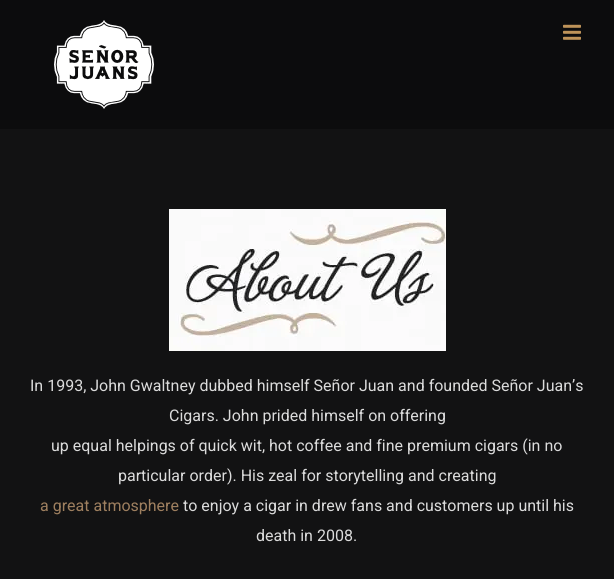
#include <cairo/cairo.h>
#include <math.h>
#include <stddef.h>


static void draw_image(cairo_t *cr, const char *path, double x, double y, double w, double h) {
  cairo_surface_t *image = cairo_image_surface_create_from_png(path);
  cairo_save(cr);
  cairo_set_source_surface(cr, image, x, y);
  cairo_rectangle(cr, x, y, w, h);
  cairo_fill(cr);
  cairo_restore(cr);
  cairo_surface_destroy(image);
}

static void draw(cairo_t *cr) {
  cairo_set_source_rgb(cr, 18 / 255.0, 18 / 255.0, 19 / 255.0);
  cairo_paint(cr);
  cairo_set_source_rgb(cr, 12 / 255.0, 12 / 255.0, 13 / 255.0);
  cairo_rectangle(cr, 0, 0, 614, 129);
  cairo_fill(cr);
  draw_image(cr, "images/1.png", 54, 20, 100, 89);
  draw_image(cr, "images/2.png", 563, 24, 18, 16);
  draw_image(cr, "images/3.png", 169, 209, 277, 142);
  cairo_select_font_face(cr, "Roboto", CAIRO_FONT_SLANT_NORMAL, CAIRO_FONT_WEIGHT_NORMAL);
  cairo_set_font_size(cr, 16);
  cairo_set_source_rgb(cr, 219 / 255.0, 219 / 255.0, 219 / 255.0);
  cairo_move_to(cr, 30, 391);
  cairo_show_text(cr, "In 1993, John Gwaltney dubbed himself Señor Juan and founded Señor Juan’s");
  cairo_move_to(cr, 169, 421);
  cairo_show_text(cr, "Cigars. John prided himself on offering");
  cairo_move_to(cr, 51, 451);
  cairo_show_text(cr, "up equal helpings of quick wit, hot coffee and fine premium cigars (in no");
  cairo_move_to(cr, 118, 481);
  cairo_show_text(cr, "particular order). His zeal for storytelling and creating");
  cairo_set_source_rgb(cr, 158 / 255.0, 127 / 255.0, 95 / 255.0);
  cairo_move_to(cr, 40, 511);
  cairo_show_text(cr, "a great atmosphere");
  cairo_set_source_rgb(cr, 219 / 255.0, 219 / 255.0, 219 / 255.0);
  cairo_move_to(cr, 183, 511);
  cairo_show_text(cr, "to enjoy a cigar in drew fans and customers up until his");
  cairo_move_to(cr, 256, 541);
  cairo_show_text(cr, "death in 2008.");
}

int main(void) {
  cairo_surface_t *surface = cairo_image_surface_create(CAIRO_FORMAT_RGB24, 614, 579);
  cairo_t *cr = cairo_create(surface);
  cairo_font_options_t *options = cairo_font_options_create();
  cairo_font_options_set_hint_metrics(options, CAIRO_HINT_METRICS_OFF);
  cairo_font_options_set_hint_style(options, CAIRO_HINT_STYLE_NONE);
  cairo_set_font_options(cr, options);
  cairo_set_miter_limit(cr, 4);
  draw(cr);
  cairo_surface_write_to_png(surface, "out.png");
  cairo_font_options_destroy(options);
  cairo_destroy(cr);
  cairo_surface_destroy(surface);
  return 0;
}
